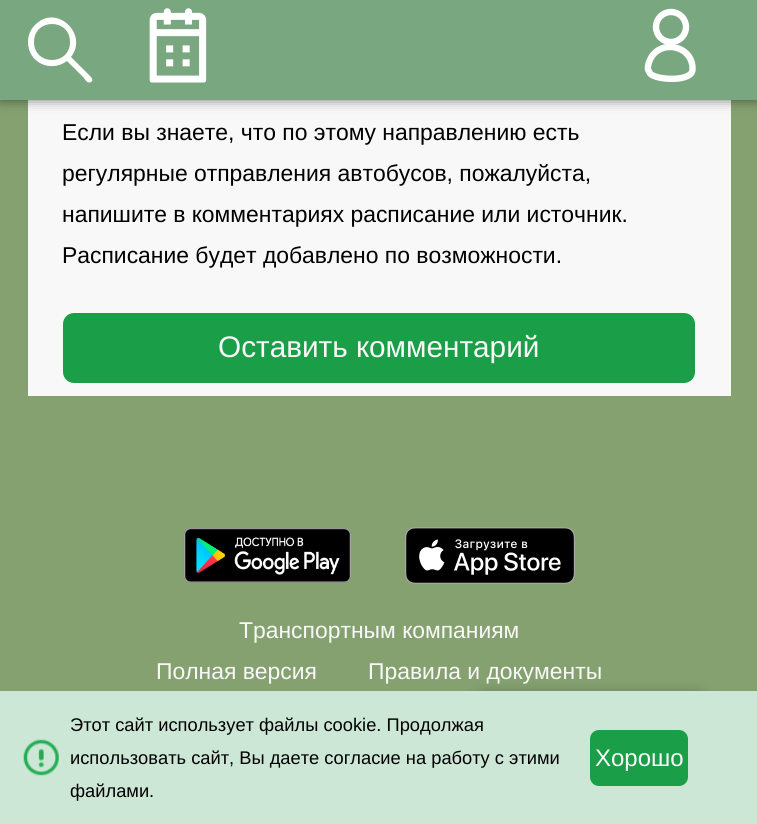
#include <cairo/cairo.h>
#include <math.h>
#include <stddef.h>


static void rounded_rect(cairo_t *cr, double x, double y, double w, double h, double r) {
  cairo_new_sub_path(cr);
  cairo_arc(cr, x + w - r, y + h - r, r, 0, M_PI / 2);
  cairo_arc(cr, x + r, y + h - r, r, M_PI / 2, M_PI);
  cairo_arc(cr, x + r, y + r, r, M_PI, 1.5 * M_PI);
  cairo_arc(cr, x + w - r, y + r, r, 1.5 * M_PI, 2 * M_PI);
  cairo_close_path(cr);
}

static void draw_shadow(cairo_t *cr, double x, double y, double w, double h, double r, double blur, double alpha) {
  cairo_push_group_with_content(cr, CAIRO_CONTENT_ALPHA);
  cairo_set_operator(cr, CAIRO_OPERATOR_SOURCE);
  for (int i = 15; i >= -15 && fmin(w, h) + blur * i / 3 > 0; i -= 2) {
    double e = blur * i / 6;
    cairo_set_source_rgba(cr, 0, 0, 0, alpha * erfc((i - 1) / 8.5) / 2);
    rounded_rect(cr, x - e, y - e, w + 2 * e, h + 2 * e, fmax(0, fmin(r + e + blur * .6, fmin(w, h) / 2 + e)));
    cairo_fill(cr);
  }
  cairo_pattern_t *soft = cairo_pop_group(cr);
  cairo_mask(cr, soft);
  cairo_pattern_destroy(soft);
}

static void draw_image(cairo_t *cr, const char *path, double x, double y, double w, double h) {
  cairo_surface_t *image = cairo_image_surface_create_from_png(path);
  cairo_save(cr);
  cairo_set_source_surface(cr, image, x, y);
  cairo_rectangle(cr, x, y, w, h);
  cairo_fill(cr);
  cairo_restore(cr);
  cairo_surface_destroy(image);
}

static void draw(cairo_t *cr) {
  cairo_set_source_rgb(cr, 133 / 255.0, 161 / 255.0, 112 / 255.0);
  cairo_paint(cr);
  cairo_set_source_rgb(cr, 248 / 255.0, 248 / 255.0, 248 / 255.0);
  cairo_rectangle(cr, 28, 100, 703, 296);
  cairo_fill(cr);
  cairo_set_source_rgb(cr, 0, 0, 0);
  draw_shadow(cr, 0, 0, 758, 100, 0, 6, 0.5);
  cairo_set_source_rgb(cr, 121 / 255.0, 167 / 255.0, 127 / 255.0);
  cairo_rectangle(cr, 0, 0, 757, 100);
  cairo_fill(cr);
  cairo_set_source_rgb(cr, 1, 1, 1);
  cairo_new_path(cr);
  cairo_move_to(cr, 28, 42);
  cairo_curve_to(cr, 28, 63, 51, 73, 67, 61);
  cairo_line_to(cr, 84, 78);
  cairo_curve_to(cr, 85, 80, 88, 84, 91, 82);
  cairo_curve_to(cr, 95, 80, 89, 75, 88, 74);
  cairo_line_to(cr, 71, 57);
  cairo_curve_to(cr, 89, 34, 56, 3, 35, 25);
  cairo_curve_to(cr, 30, 30, 28, 36, 28, 42);
  cairo_close_path(cr);
  cairo_move_to(cr, 70, 42);
  cairo_curve_to(cr, 70, 66, 34, 66, 34, 42);
  cairo_curve_to(cr, 34, 18, 70, 18, 70, 42);
  cairo_close_path(cr);
  cairo_fill(cr);
  draw_image(cr, "images/1.png", 149, 8, 58, 75);
  cairo_arc(cr, 671, 27, 15, 0, 2 * M_PI);
  cairo_set_line_width(cr, 6.4);
  cairo_stroke(cr);
  cairo_new_path(cr);
  cairo_move_to(cr, 692.5, 69.5);
  cairo_curve_to(cr, 692.5, 82, 656.5, 80.5, 650, 73.5);
  cairo_line_to(cr, 648, 69.5);
  cairo_curve_to(cr, 647.5, 67, 648.5, 63, 649.5, 61);
  cairo_curve_to(cr, 658.5, 38, 693.5, 45, 692.5, 69.5);
  cairo_close_path(cr);
  cairo_set_line_cap(cr, CAIRO_LINE_CAP_ROUND);
  cairo_set_line_join(cr, CAIRO_LINE_JOIN_ROUND);
  cairo_stroke(cr);
  cairo_set_source_rgb(cr, 27 / 255.0, 158 / 255.0, 72 / 255.0);
  rounded_rect(cr, 63, 313, 632, 70, 11);
  cairo_fill(cr);
  cairo_set_source_rgb(cr, 0, 0, 0);
  draw_shadow(cr, 471, 695, 240, 84, 15, 7.5, 0.3);
  draw_image(cr, "images/2.png", 183, 528, 168, 55);
  draw_image(cr, "images/3.png", 405, 527, 170, 57);
  cairo_set_source_rgb(cr, 205 / 255.0, 231 / 255.0, 214 / 255.0);
  cairo_rectangle(cr, 0, 691, 757, 133);
  cairo_fill(cr);
  draw_image(cr, "images/4.png", 23, 739, 36, 37);
  cairo_set_source_rgb(cr, 27 / 255.0, 158 / 255.0, 72 / 255.0);
  rounded_rect(cr, 590, 730, 98, 56, 9);
  cairo_fill(cr);
  cairo_select_font_face(cr, "Liberation Sans", CAIRO_FONT_SLANT_NORMAL, CAIRO_FONT_WEIGHT_NORMAL);
  cairo_set_font_size(cr, 22.9);
  cairo_set_source_rgb(cr, 0, 0, 0);
  cairo_move_to(cr, 62, 140);
  cairo_show_text(cr, "Если вы знаете, что по этому направлению есть");
  cairo_move_to(cr, 62, 181);
  cairo_show_text(cr, "регулярные отправления автобусов, пожалуйста,");
  cairo_move_to(cr, 62, 222);
  cairo_show_text(cr, "напишите в комментариях расписание или источник.");
  cairo_move_to(cr, 62, 263);
  cairo_show_text(cr, "Расписание будет добавлено по возможности.");
  cairo_set_font_size(cr, 29.75);
  cairo_set_source_rgb(cr, 248 / 255.0, 248 / 255.0, 248 / 255.0);
  cairo_move_to(cr, 218, 357);
  cairo_show_text(cr, "Оставить комментарий");
  cairo_set_font_size(cr, 22.9);
  cairo_move_to(cr, 239, 638);
  cairo_show_text(cr, "Транспортным компаниям");
  cairo_move_to(cr, 156, 679);
  cairo_show_text(cr, "Полная версия");
  cairo_move_to(cr, 368, 679);
  cairo_show_text(cr, "Правила и документы");
  cairo_set_font_size(cr, 18.3);
  cairo_set_source_rgb(cr, 0, 0, 0);
  cairo_move_to(cr, 70, 731);
  cairo_show_text(cr, "Этот сайт использует файлы cookie. Продолжая");
  cairo_move_to(cr, 70, 764);
  cairo_show_text(cr, "использовать сайт, Вы даете согласие на работу с этими");
  cairo_move_to(cr, 70, 797);
  cairo_show_text(cr, "файлами.");
  cairo_set_font_size(cr, 24);
  cairo_set_source_rgb(cr, 248 / 255.0, 248 / 255.0, 248 / 255.0);
  cairo_move_to(cr, 595, 766);
  cairo_show_text(cr, "Хорошо");
}

int main(void) {
  cairo_surface_t *surface = cairo_image_surface_create(CAIRO_FORMAT_RGB24, 757, 824);
  cairo_t *cr = cairo_create(surface);
  cairo_font_options_t *options = cairo_font_options_create();
  cairo_font_options_set_hint_metrics(options, CAIRO_HINT_METRICS_OFF);
  cairo_font_options_set_hint_style(options, CAIRO_HINT_STYLE_NONE);
  cairo_set_font_options(cr, options);
  cairo_set_miter_limit(cr, 4);
  draw(cr);
  cairo_surface_write_to_png(surface, "out.png");
  cairo_font_options_destroy(options);
  cairo_destroy(cr);
  cairo_surface_destroy(surface);
  return 0;
}
